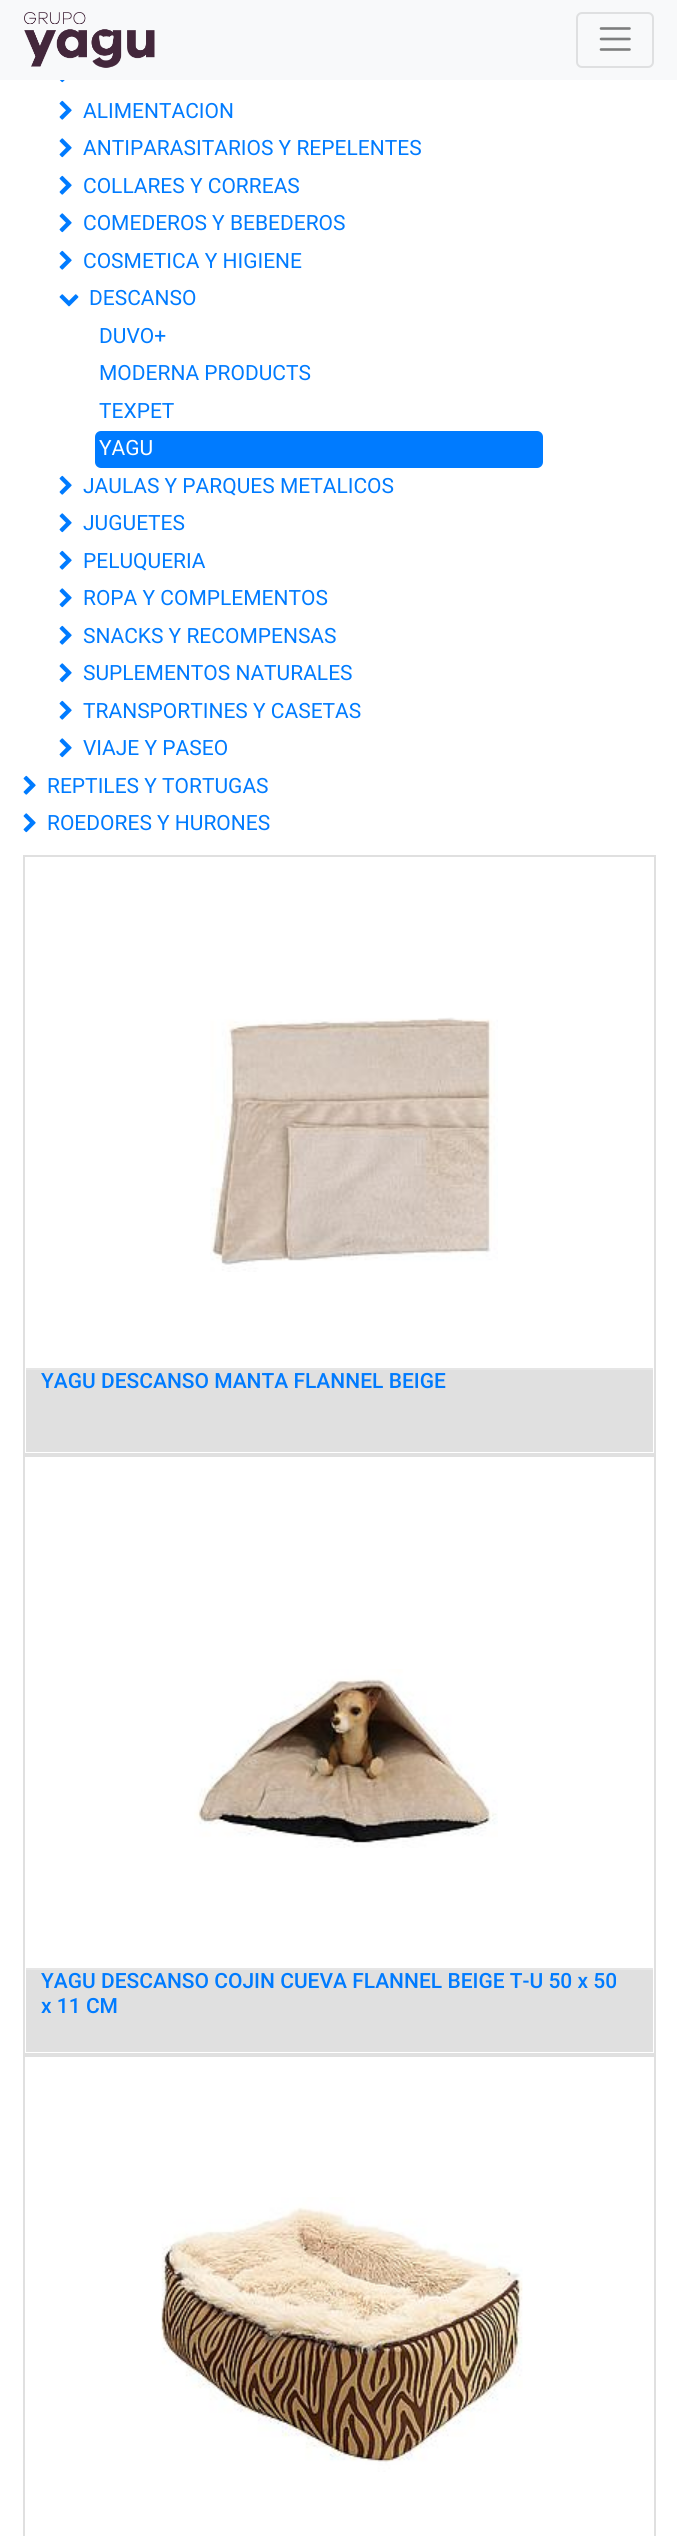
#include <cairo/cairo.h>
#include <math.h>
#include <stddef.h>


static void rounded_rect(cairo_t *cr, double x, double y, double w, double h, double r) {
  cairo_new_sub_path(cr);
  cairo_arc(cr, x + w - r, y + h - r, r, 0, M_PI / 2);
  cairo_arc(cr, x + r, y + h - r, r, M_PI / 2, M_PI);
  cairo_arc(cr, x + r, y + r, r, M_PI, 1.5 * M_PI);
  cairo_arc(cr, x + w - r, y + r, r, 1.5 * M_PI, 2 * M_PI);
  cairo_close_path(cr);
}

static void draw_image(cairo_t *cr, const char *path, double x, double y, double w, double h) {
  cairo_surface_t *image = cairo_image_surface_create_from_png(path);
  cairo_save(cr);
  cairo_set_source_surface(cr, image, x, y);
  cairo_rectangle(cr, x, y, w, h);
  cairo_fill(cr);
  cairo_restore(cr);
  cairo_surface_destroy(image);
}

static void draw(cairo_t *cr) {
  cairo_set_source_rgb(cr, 1, 1, 1);
  cairo_paint(cr);
  cairo_set_source_rgb(cr, 248 / 255.0, 249 / 255.0, 250 / 255.0);
  cairo_rectangle(cr, 0, 0, 677, 80);
  cairo_fill(cr);
  draw_image(cr, "images/1.png", 24, 12, 131, 56);
  rounded_rect(cr, 577, 13, 76, 54, 5);
  cairo_set_source_rgb(cr, 223 / 255.0, 224 / 255.0, 225 / 255.0);
  cairo_stroke(cr);
  cairo_new_path(cr);
  cairo_move_to(cr, 601, 28.5);
  cairo_line_to(cr, 629.5, 28.5);
  cairo_move_to(cr, 601, 39);
  cairo_line_to(cr, 629.5, 39);
  cairo_move_to(cr, 601, 49.5);
  cairo_line_to(cr, 629.5, 49.5);
  cairo_set_source_rgb(cr, 124 / 255.0, 125 / 255.0, 125 / 255.0);
  cairo_set_line_width(cr, 2.6);
  cairo_set_line_cap(cr, CAIRO_LINE_CAP_ROUND);
  cairo_stroke(cr);
  draw_image(cr, "images/2.png", 59, 80, 6, 3);
  draw_image(cr, "images/3.png", 59, 100, 13, 20);
  draw_image(cr, "images/4.png", 59, 138, 13, 20);
  draw_image(cr, "images/3.png", 59, 175, 13, 20);
  draw_image(cr, "images/4.png", 59, 213, 13, 20);
  draw_image(cr, "images/3.png", 59, 250, 13, 20);
  draw_image(cr, "images/5.png", 59, 294, 20, 13);
  cairo_set_source_rgb(cr, 0, 123 / 255.0, 1);
  rounded_rect(cr, 95, 431, 448, 37, 6);
  cairo_fill(cr);
  draw_image(cr, "images/3.png", 59, 475, 13, 20);
  draw_image(cr, "images/4.png", 59, 513, 13, 20);
  draw_image(cr, "images/3.png", 59, 550, 13, 20);
  draw_image(cr, "images/4.png", 59, 588, 13, 20);
  draw_image(cr, "images/3.png", 59, 625, 13, 20);
  draw_image(cr, "images/4.png", 59, 663, 13, 20);
  draw_image(cr, "images/3.png", 59, 700, 13, 20);
  draw_image(cr, "images/4.png", 59, 738, 13, 20);
  draw_image(cr, "images/3.png", 23, 775, 13, 20);
  draw_image(cr, "images/4.png", 23, 813, 13, 20);
  cairo_rectangle(cr, 24, 856, 631, 598);
  cairo_set_source_rgb(cr, 224 / 255.0, 224 / 255.0, 224 / 255.0);
  cairo_set_line_width(cr, 2);
  cairo_set_line_cap(cr, CAIRO_LINE_CAP_BUTT);
  cairo_stroke(cr);
  draw_image(cr, "images/6.png", 210, 1017, 288, 255);
  cairo_rectangle(cr, 26, 1370, 627, 82);
  cairo_fill(cr);
  cairo_set_source_rgb(cr, 230 / 255.0, 230 / 255.0, 230 / 255.0);
  cairo_rectangle(cr, 26, 1368, 627, 2);
  cairo_fill(cr);
  cairo_rectangle(cr, 24, 1456, 631, 598);
  cairo_set_source_rgb(cr, 224 / 255.0, 224 / 255.0, 224 / 255.0);
  cairo_stroke(cr);
  draw_image(cr, "images/7.png", 194, 1669, 304, 179);
  cairo_rectangle(cr, 26, 1970, 627, 82);
  cairo_fill(cr);
  cairo_set_source_rgb(cr, 230 / 255.0, 230 / 255.0, 230 / 255.0);
  cairo_rectangle(cr, 26, 1968, 627, 2);
  cairo_fill(cr);
  cairo_rectangle(cr, 24, 2056, 631, 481);
  cairo_set_source_rgb(cr, 224 / 255.0, 224 / 255.0, 224 / 255.0);
  cairo_stroke(cr);
  draw_image(cr, "images/8.png", 160, 2197, 363, 275);
  cairo_select_font_face(cr, "Roboto", CAIRO_FONT_SLANT_NORMAL, CAIRO_FONT_WEIGHT_NORMAL);
  cairo_set_font_size(cr, 21);
  cairo_set_source_rgb(cr, 0, 123 / 255.0, 1);
  cairo_move_to(cr, 83, 118);
  cairo_show_text(cr, "ALIMENTACION");
  cairo_move_to(cr, 83, 155);
  cairo_show_text(cr, "ANTIPARASITARIOS Y REPELENTES");
  cairo_move_to(cr, 83, 193);
  cairo_show_text(cr, "COLLARES Y CORREAS");
  cairo_move_to(cr, 83, 230);
  cairo_show_text(cr, "COMEDEROS Y BEBEDEROS");
  cairo_move_to(cr, 83, 268);
  cairo_show_text(cr, "COSMETICA Y HIGIENE");
  cairo_move_to(cr, 89, 305);
  cairo_show_text(cr, "DESCANSO");
  cairo_move_to(cr, 99, 343);
  cairo_show_text(cr, "DUVO+");
  cairo_move_to(cr, 99, 380);
  cairo_show_text(cr, "MODERNA PRODUCTS");
  cairo_move_to(cr, 99, 418);
  cairo_show_text(cr, "TEXPET");
  cairo_set_source_rgb(cr, 1, 1, 1);
  cairo_move_to(cr, 99, 455);
  cairo_show_text(cr, "YAGU");
  cairo_set_source_rgb(cr, 0, 123 / 255.0, 1);
  cairo_move_to(cr, 83, 493);
  cairo_show_text(cr, "JAULAS Y PARQUES METALICOS");
  cairo_move_to(cr, 83, 530);
  cairo_show_text(cr, "JUGUETES");
  cairo_move_to(cr, 83, 568);
  cairo_show_text(cr, "PELUQUERIA");
  cairo_move_to(cr, 83, 605);
  cairo_show_text(cr, "ROPA Y COMPLEMENTOS");
  cairo_move_to(cr, 83, 643);
  cairo_show_text(cr, "SNACKS Y RECOMPENSAS");
  cairo_move_to(cr, 83, 680);
  cairo_show_text(cr, "SUPLEMENTOS NATURALES");
  cairo_move_to(cr, 83, 718);
  cairo_show_text(cr, "TRANSPORTINES Y CASETAS");
  cairo_move_to(cr, 83, 755);
  cairo_show_text(cr, "VIAJE Y PASEO");
  cairo_move_to(cr, 47, 793);
  cairo_show_text(cr, "REPTILES Y TORTUGAS");
  cairo_move_to(cr, 47, 830);
  cairo_show_text(cr, "ROEDORES Y HURONES");
  cairo_select_font_face(cr, "Roboto Medium", CAIRO_FONT_SLANT_NORMAL, CAIRO_FONT_WEIGHT_NORMAL);
  cairo_move_to(cr, 41, 1388);
  cairo_show_text(cr, "YAGU DESCANSO MANTA FLANNEL BEIGE");
  cairo_move_to(cr, 41, 1988);
  cairo_show_text(cr, "YAGU DESCANSO COJIN CUEVA FLANNEL BEIGE T-U 50 x 50");
  cairo_move_to(cr, 41, 2013);
  cairo_show_text(cr, "x 11 CM");
}

int main(void) {
  cairo_surface_t *surface = cairo_image_surface_create(CAIRO_FORMAT_RGB24, 677, 2536);
  cairo_t *cr = cairo_create(surface);
  cairo_font_options_t *options = cairo_font_options_create();
  cairo_font_options_set_hint_metrics(options, CAIRO_HINT_METRICS_OFF);
  cairo_font_options_set_hint_style(options, CAIRO_HINT_STYLE_NONE);
  cairo_set_font_options(cr, options);
  cairo_set_miter_limit(cr, 4);
  draw(cr);
  cairo_surface_write_to_png(surface, "out.png");
  cairo_font_options_destroy(options);
  cairo_destroy(cr);
  cairo_surface_destroy(surface);
  return 0;
}
